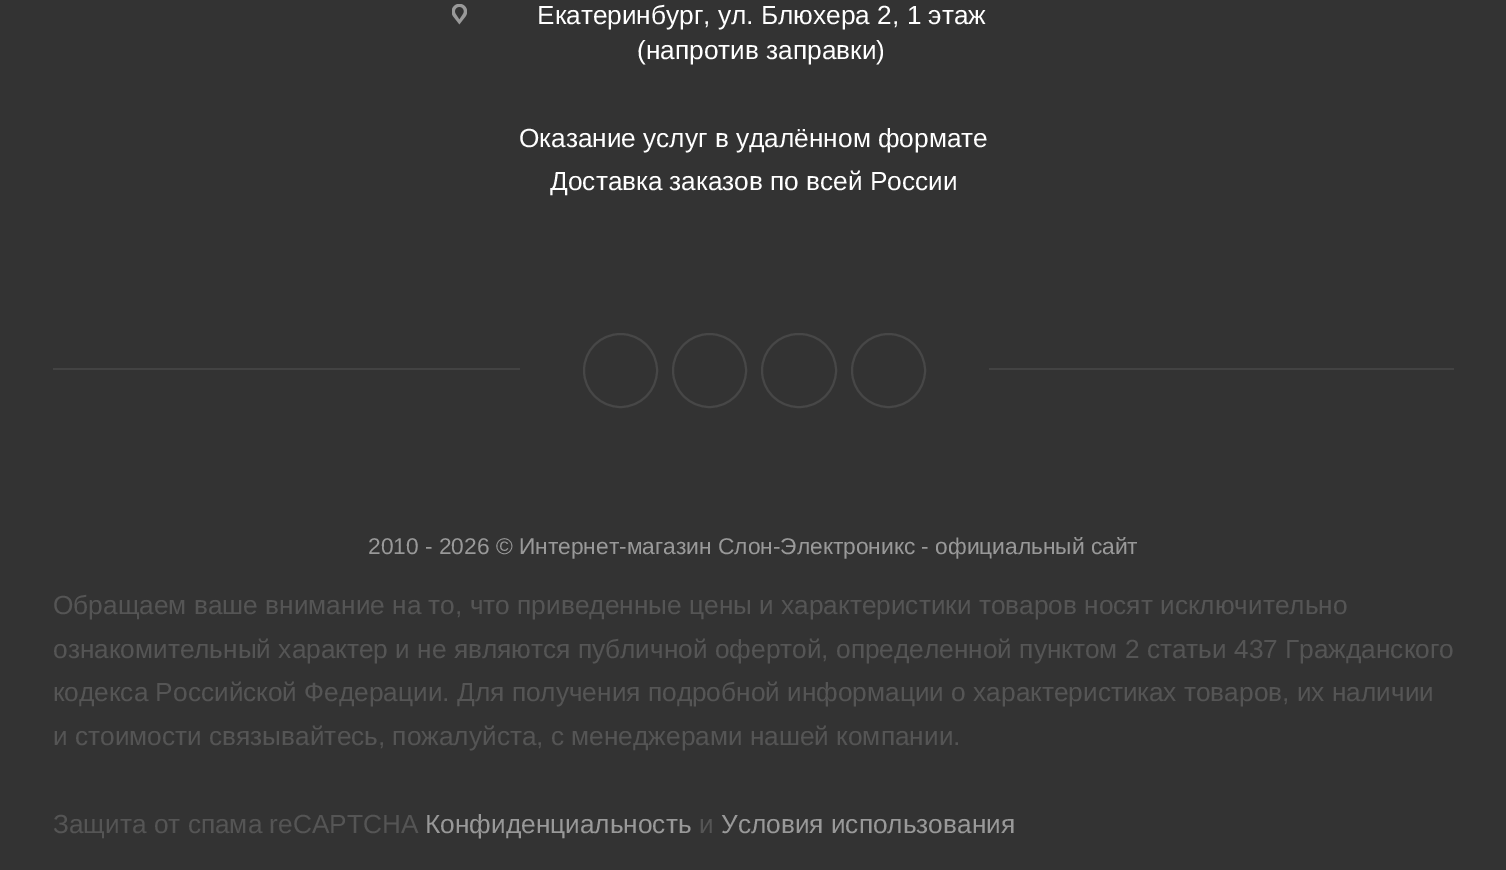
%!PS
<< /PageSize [1506 870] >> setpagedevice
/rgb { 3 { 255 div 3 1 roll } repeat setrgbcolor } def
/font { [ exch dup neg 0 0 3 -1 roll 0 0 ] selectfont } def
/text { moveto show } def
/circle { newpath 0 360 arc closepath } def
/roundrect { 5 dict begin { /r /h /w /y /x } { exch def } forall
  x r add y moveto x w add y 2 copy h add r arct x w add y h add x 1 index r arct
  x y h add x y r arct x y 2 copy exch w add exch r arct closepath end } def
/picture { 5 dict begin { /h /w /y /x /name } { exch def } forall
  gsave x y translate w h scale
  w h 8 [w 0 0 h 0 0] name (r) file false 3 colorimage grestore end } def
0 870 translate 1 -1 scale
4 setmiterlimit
51 51 51 rgb
0 0 1506 870 rectfill
(img_01.rgb) 452 4 15 21 picture
67 67 67 rgb
53 368 1401 2 rectfill
51 51 51 rgb
520 368 469 2 rectfill
71 71 71 rgb
2 setlinewidth
620.5 370.5 36.5 circle stroke
709.5 370.5 36.5 circle stroke
762 334 74 73 36.5 roundrect stroke
888.5 370.5 36.5 circle stroke
/LiberationSans-Regular 26.25 font
255 255 255 rgb
(Екатеринбург, ул. Блюхера 2, 1 этаж) 537 24 text
(\(напротив заправки\)) 637 59 text
(Оказание услуг в удалённом формате) 519 147 text
(Доставка заказов по всей России) 550 190 text
/LiberationSans-Regular 22.75 font
153 153 153 rgb
(2010 - 2026 © Интернет-магазин Слон-Электроникс - официальный сайт) 368 554 text
/LiberationSans-Regular 26.25 font
85 85 85 rgb
(Обращаем ваше внимание на то, что приведенные цены и характеристики товaров носят исключительно) 53 614 text
(ознакомительный характер и не являются публичной офертой, определенной пунктом 2 статьи 437 Гражданского) 53 658 text
(кодекса Российской Федерации. Для получения подробной информации о характеристиках товaров, их наличии) 53 701 text
(и стоимости связывайтесь, пожалуйста, с менеджерами нашей компании.) 53 745 text
(Защита от спама reCAPTCHA) 53 833 text
153 153 153 rgb
(Конфиденциальность) 425 833 text
85 85 85 rgb
(и) 699 833 text
153 153 153 rgb
(Условия использования) 721 833 text
showpage
